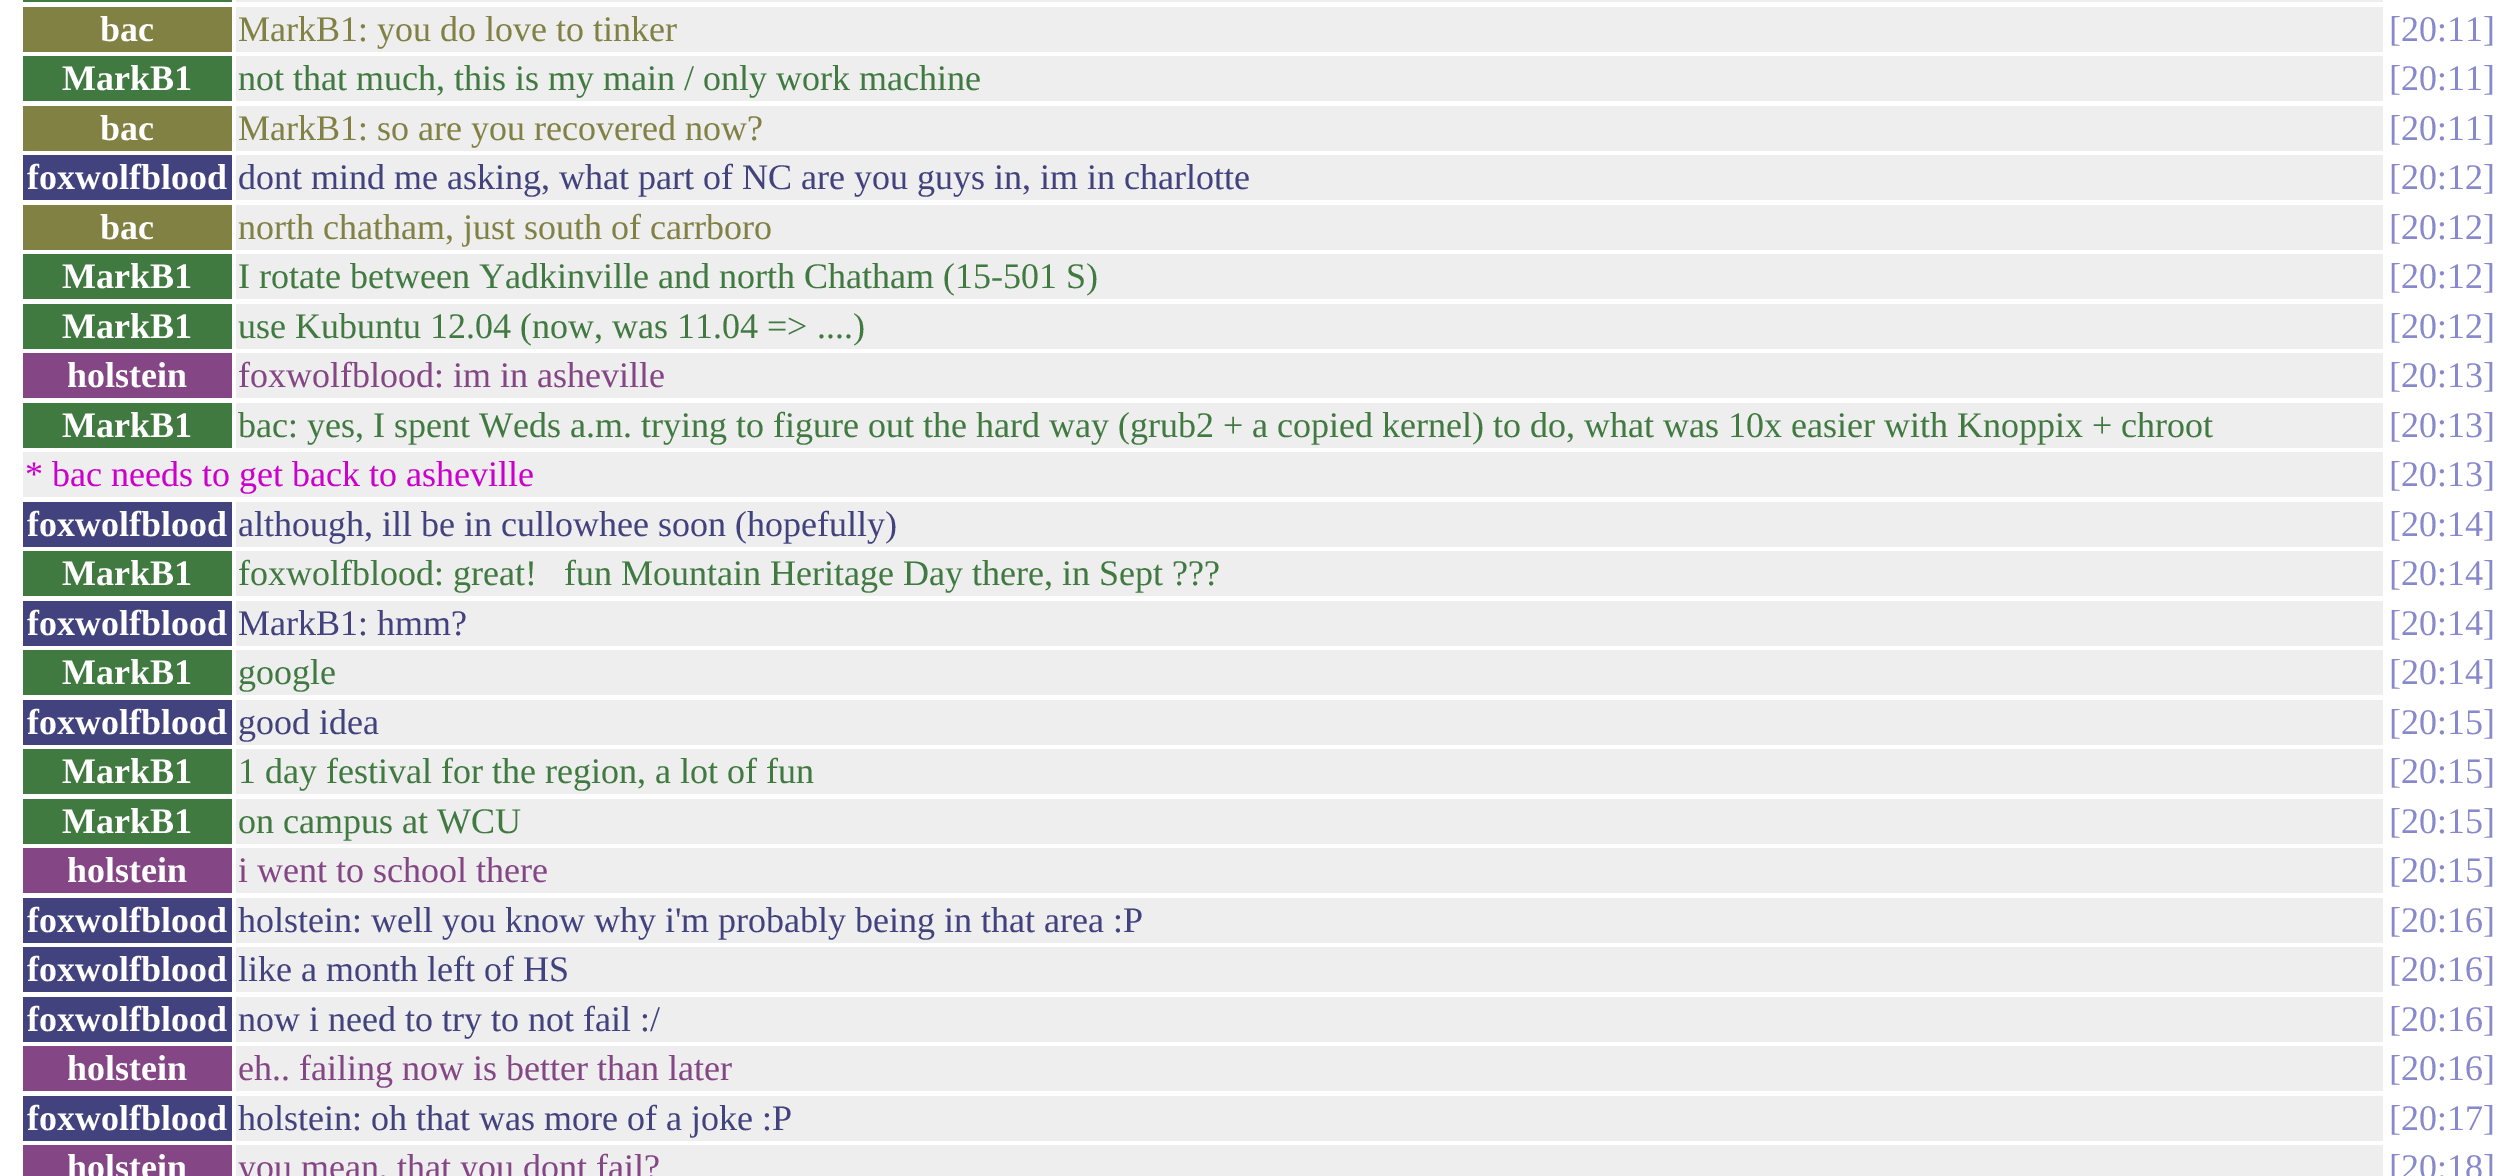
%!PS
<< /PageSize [2519 1176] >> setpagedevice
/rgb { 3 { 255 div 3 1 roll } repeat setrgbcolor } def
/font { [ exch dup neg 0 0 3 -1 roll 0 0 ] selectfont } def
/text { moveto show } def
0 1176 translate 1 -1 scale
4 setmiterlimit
255 255 255 rgb
0 0 2519 1176 rectfill
64 122 64 rgb
23 0 209 2 rectfill
238 238 238 rgb
236 0 2147 2 rectfill
129 129 68 rgb
23 7 209 45 rectfill
238 238 238 rgb
236 7 2147 45 rectfill
64 122 64 rgb
23 56 209 45 rectfill
238 238 238 rgb
236 56 2147 45 rectfill
129 129 68 rgb
23 106 209 45 rectfill
238 238 238 rgb
236 106 2147 45 rectfill
66 66 126 rgb
23 155 209 45 rectfill
238 238 238 rgb
236 155 2147 45 rectfill
129 129 68 rgb
23 205 209 45 rectfill
238 238 238 rgb
236 205 2147 45 rectfill
64 122 64 rgb
23 254 209 45 rectfill
238 238 238 rgb
236 254 2147 45 rectfill
64 122 64 rgb
23 304 209 45 rectfill
238 238 238 rgb
236 304 2147 45 rectfill
133 70 133 rgb
23 353 209 45 rectfill
238 238 238 rgb
236 353 2147 45 rectfill
64 122 64 rgb
23 403 209 45 rectfill
238 238 238 rgb
236 403 2147 45 rectfill
23 452 2360 45 rectfill
66 66 126 rgb
23 502 209 45 rectfill
238 238 238 rgb
236 502 2147 45 rectfill
64 122 64 rgb
23 551 209 45 rectfill
238 238 238 rgb
236 551 2147 45 rectfill
66 66 126 rgb
23 601 209 45 rectfill
238 238 238 rgb
236 601 2147 45 rectfill
64 122 64 rgb
23 650 209 45 rectfill
238 238 238 rgb
236 650 2147 45 rectfill
66 66 126 rgb
23 700 209 45 rectfill
238 238 238 rgb
236 700 2147 45 rectfill
64 122 64 rgb
23 749 209 45 rectfill
238 238 238 rgb
236 749 2147 45 rectfill
64 122 64 rgb
23 799 209 45 rectfill
238 238 238 rgb
236 799 2147 45 rectfill
133 70 133 rgb
23 848 209 45 rectfill
238 238 238 rgb
236 848 2147 45 rectfill
66 66 126 rgb
23 898 209 45 rectfill
238 238 238 rgb
236 898 2147 45 rectfill
66 66 126 rgb
23 947 209 45 rectfill
238 238 238 rgb
236 947 2147 45 rectfill
66 66 126 rgb
23 997 209 45 rectfill
238 238 238 rgb
236 997 2147 45 rectfill
133 70 133 rgb
23 1046 209 45 rectfill
238 238 238 rgb
236 1046 2147 45 rectfill
66 66 126 rgb
23 1096 209 45 rectfill
238 238 238 rgb
236 1096 2147 45 rectfill
133 70 133 rgb
23 1145 209 31 rectfill
238 238 238 rgb
236 1145 2147 31 rectfill
/LiberationSerif-Bold 36 font
255 255 255 rgb
(bac) 100 41 text
/LiberationSerif-Regular 36 font
129 129 68 rgb
(MarkB1: you do love to tinker) 238 41 text
136 136 204 rgb
([20:11]) 2389 41 text
/LiberationSerif-Bold 36 font
255 255 255 rgb
(MarkB1) 62 90 text
/LiberationSerif-Regular 36 font
64 122 64 rgb
(not that much, this is my main / only work machine) 238 90 text
136 136 204 rgb
([20:11]) 2389 90 text
/LiberationSerif-Bold 36 font
255 255 255 rgb
(bac) 100 140 text
/LiberationSerif-Regular 36 font
129 129 68 rgb
(MarkB1: so are you recovered now?) 238 140 text
136 136 204 rgb
([20:11]) 2389 140 text
/LiberationSerif-Bold 36 font
255 255 255 rgb
(foxwolfblood) 27 189 text
/LiberationSerif-Regular 36 font
66 66 126 rgb
(dont mind me asking, what part of NC are you guys in, im in charlotte) 238 189 text
136 136 204 rgb
([20:12]) 2389 189 text
/LiberationSerif-Bold 36 font
255 255 255 rgb
(bac) 100 239 text
/LiberationSerif-Regular 36 font
129 129 68 rgb
(north chatham, just south of carrboro) 238 239 text
136 136 204 rgb
([20:12]) 2389 239 text
/LiberationSerif-Bold 36 font
255 255 255 rgb
(MarkB1) 62 288 text
/LiberationSerif-Regular 36 font
64 122 64 rgb
(I rotate between Yadkinville and north Chatham \(15-501 S\)) 238 288 text
136 136 204 rgb
([20:12]) 2389 288 text
/LiberationSerif-Bold 36 font
255 255 255 rgb
(MarkB1) 62 338 text
/LiberationSerif-Regular 36 font
64 122 64 rgb
(use Kubuntu 12.04 \(now, was 11.04 => ....\)) 238 338 text
136 136 204 rgb
([20:12]) 2389 338 text
/LiberationSerif-Bold 36 font
255 255 255 rgb
(holstein) 67 387 text
/LiberationSerif-Regular 36 font
133 70 133 rgb
(foxwolfblood: im in asheville) 238 387 text
136 136 204 rgb
([20:13]) 2389 387 text
/LiberationSerif-Bold 36 font
255 255 255 rgb
(MarkB1) 62 437 text
/LiberationSerif-Regular 36 font
64 122 64 rgb
(bac: yes, I spent Weds a.m. trying to figure out the hard way \(grub2 + a copied kernel\) to do, what was 10x easier with Knoppix + chroot) 238 437 text
136 136 204 rgb
([20:13]) 2389 437 text
204 0 204 rgb
(* bac needs to get back to asheville) 25 486 text
136 136 204 rgb
([20:13]) 2389 486 text
/LiberationSerif-Bold 36 font
255 255 255 rgb
(foxwolfblood) 27 536 text
/LiberationSerif-Regular 36 font
66 66 126 rgb
(although, ill be in cullowhee soon \(hopefully\)) 238 536 text
136 136 204 rgb
([20:14]) 2389 536 text
/LiberationSerif-Bold 36 font
255 255 255 rgb
(MarkB1) 62 585 text
/LiberationSerif-Regular 36 font
64 122 64 rgb
(foxwolfblood: great!   fun Mountain Heritage Day there, in Sept ???) 238 585 text
136 136 204 rgb
([20:14]) 2389 585 text
/LiberationSerif-Bold 36 font
255 255 255 rgb
(foxwolfblood) 27 635 text
/LiberationSerif-Regular 36 font
66 66 126 rgb
(MarkB1: hmm?) 238 635 text
136 136 204 rgb
([20:14]) 2389 635 text
/LiberationSerif-Bold 36 font
255 255 255 rgb
(MarkB1) 62 684 text
/LiberationSerif-Regular 36 font
64 122 64 rgb
(google) 238 684 text
136 136 204 rgb
([20:14]) 2389 684 text
/LiberationSerif-Bold 36 font
255 255 255 rgb
(foxwolfblood) 27 734 text
/LiberationSerif-Regular 36 font
66 66 126 rgb
(good idea) 238 734 text
136 136 204 rgb
([20:15]) 2389 734 text
/LiberationSerif-Bold 36 font
255 255 255 rgb
(MarkB1) 62 783 text
/LiberationSerif-Regular 36 font
64 122 64 rgb
(1 day festival for the region, a lot of fun) 238 783 text
136 136 204 rgb
([20:15]) 2389 783 text
/LiberationSerif-Bold 36 font
255 255 255 rgb
(MarkB1) 62 833 text
/LiberationSerif-Regular 36 font
64 122 64 rgb
(on campus at WCU) 238 833 text
136 136 204 rgb
([20:15]) 2389 833 text
/LiberationSerif-Bold 36 font
255 255 255 rgb
(holstein) 67 882 text
/LiberationSerif-Regular 36 font
133 70 133 rgb
(i went to school there) 238 882 text
136 136 204 rgb
([20:15]) 2389 882 text
/LiberationSerif-Bold 36 font
255 255 255 rgb
(foxwolfblood) 27 932 text
/LiberationSerif-Regular 36 font
66 66 126 rgb
(holstein: well you know why i'm probably being in that area :P) 238 932 text
136 136 204 rgb
([20:16]) 2389 932 text
/LiberationSerif-Bold 36 font
255 255 255 rgb
(foxwolfblood) 27 981 text
/LiberationSerif-Regular 36 font
66 66 126 rgb
(like a month left of HS) 238 981 text
136 136 204 rgb
([20:16]) 2389 981 text
/LiberationSerif-Bold 36 font
255 255 255 rgb
(foxwolfblood) 27 1031 text
/LiberationSerif-Regular 36 font
66 66 126 rgb
(now i need to try to not fail :/) 238 1031 text
136 136 204 rgb
([20:16]) 2389 1031 text
/LiberationSerif-Bold 36 font
255 255 255 rgb
(holstein) 67 1080 text
/LiberationSerif-Regular 36 font
133 70 133 rgb
(eh.. failing now is better than later) 238 1080 text
136 136 204 rgb
([20:16]) 2389 1080 text
/LiberationSerif-Bold 36 font
255 255 255 rgb
(foxwolfblood) 27 1130 text
/LiberationSerif-Regular 36 font
66 66 126 rgb
(holstein: oh that was more of a joke :P) 238 1130 text
136 136 204 rgb
([20:17]) 2389 1130 text
/LiberationSerif-Bold 36 font
255 255 255 rgb
(holstein) 67 1179 text
/LiberationSerif-Regular 36 font
133 70 133 rgb
(you mean, that you dont fail?) 238 1179 text
136 136 204 rgb
([20:18]) 2389 1179 text
showpage
